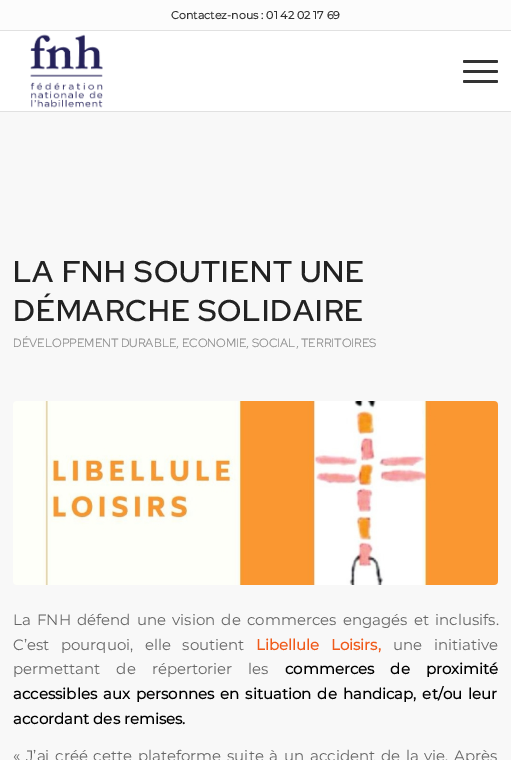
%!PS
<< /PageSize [511 760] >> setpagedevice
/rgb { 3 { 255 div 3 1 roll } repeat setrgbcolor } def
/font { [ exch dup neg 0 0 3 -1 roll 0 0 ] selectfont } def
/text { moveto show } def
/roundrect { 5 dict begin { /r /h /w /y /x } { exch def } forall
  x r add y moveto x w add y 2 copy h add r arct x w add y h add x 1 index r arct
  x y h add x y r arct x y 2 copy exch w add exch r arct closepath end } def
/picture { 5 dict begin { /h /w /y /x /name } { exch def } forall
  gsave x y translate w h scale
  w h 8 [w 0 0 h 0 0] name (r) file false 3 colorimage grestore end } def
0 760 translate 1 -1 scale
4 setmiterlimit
248 248 248 rgb
0 0 511 760 rectfill
252 252 252 rgb
0 0 511 30 rectfill
225 225 225 rgb
0 30 511 1 rectfill
255 255 255 rgb
0 31 511 80 rectfill
225 225 225 rgb
0 111 511 1 rectfill
(img_01.rgb) 30 34 73 74 picture
51 51 51 rgb
463 70 35 3 1.5 roundrect fill
463 60 35 3 1.5 roundrect fill
463 80 35 3 1.5 roundrect fill
(img_02.rgb) 13 401 485 184 picture
/Montserrat-Bold 11 font
(Contactez-nous : 01 42 02 17 69) 171 19 text
/RedHatDisplay-SemiBold 30 font
34 34 34 rgb
13 282 moveto 1 0 (LA FNH SOUTIENT UNE) ashow
13 321 moveto 1 0 (DÉMARCHE SOLIDAIRE) ashow
/RedHatDisplay-Regular 12 font
141 141 141 rgb
(DÉVELOPPEMENT DURABLE, ECONOMIE, SOCIAL, TERRITOIRES) 13 347 text
/Montserrat-Thin 15 font
102 102 102 rgb
13 625 moveto 2.25 0 32 (La FNH défend une vision de commerces engagés et inclusifs.) widthshow
13 650 moveto 7.5 0 32 (C’est pourquoi, elle soutient) widthshow
/Montserrat-Bold 15 font
240 90 26 rgb
256 650 moveto 7.5 0 32 (Libellule Loisirs,) widthshow
/Montserrat-Thin 15 font
102 102 102 rgb
393 650 moveto 7.5 0 32 (une initiative) widthshow
13 674 moveto 12 0 32 (permettant de répertorier les) widthshow
/Montserrat-Bold 15 font
0 0 0 rgb
285 674 moveto 12 0 32 (commerces de proximité) widthshow
13 699 moveto 2 0 32 (accessibles aux personnes en situation de handicap, et/ou leur) widthshow
(accordant des remises.) 13 724 text
/Montserrat-Thin 15 font
102 102 102 rgb
13 761 moveto 1.75 0 32 (« J’ai créé cette plateforme suite à un accident de la vie. Après) widthshow
showpage
